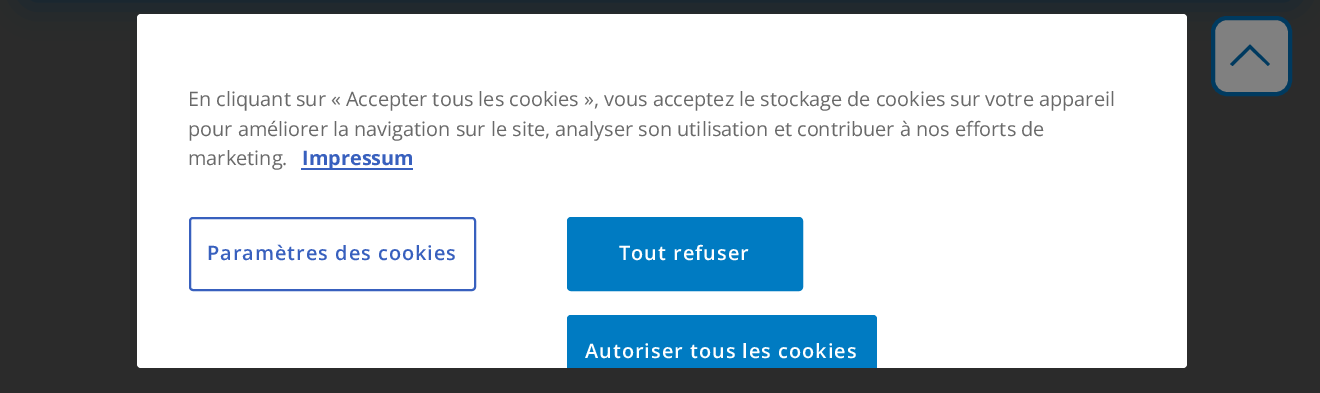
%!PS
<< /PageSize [1320 393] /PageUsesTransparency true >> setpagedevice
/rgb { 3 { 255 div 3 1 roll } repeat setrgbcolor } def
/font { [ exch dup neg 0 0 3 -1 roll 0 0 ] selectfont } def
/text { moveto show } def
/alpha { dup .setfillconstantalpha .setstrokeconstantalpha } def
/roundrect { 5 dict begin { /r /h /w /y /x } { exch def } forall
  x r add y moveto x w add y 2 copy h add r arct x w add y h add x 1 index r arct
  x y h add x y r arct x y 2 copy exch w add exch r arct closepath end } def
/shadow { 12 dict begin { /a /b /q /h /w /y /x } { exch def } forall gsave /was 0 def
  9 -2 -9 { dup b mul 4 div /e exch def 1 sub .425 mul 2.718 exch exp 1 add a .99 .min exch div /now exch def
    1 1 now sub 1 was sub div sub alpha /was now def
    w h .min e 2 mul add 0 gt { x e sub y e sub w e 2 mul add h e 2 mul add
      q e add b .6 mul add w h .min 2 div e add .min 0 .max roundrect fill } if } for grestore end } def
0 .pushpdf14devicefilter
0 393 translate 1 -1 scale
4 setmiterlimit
43 43 43 rgb
0 0 1320 393 rectfill
0 34 56 rgb
28 -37 1265 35 0 19 0.81 shadow
128 128 128 rgb
1213 18 77 76 14 roundrect gsave fill grestore
0 58 95 rgb
4 setlinewidth
stroke
1268 66 moveto -18 -17 rlineto -17.5 17 rlineto -2.5 -2 rlineto 20 -19.5 rlineto 20 19.5 rlineto closepath fill
255 255 255 rgb
137 14 1050 354 4 roundrect fill
56 96 190 rgb
301 168 112 2 rectfill
2 setlinewidth
190 218 285 72 3 roundrect stroke
0 123 194 rgb
568 218 234 72 3 roundrect gsave fill grestore
stroke
571 315 moveto 302 0 rlineto 2 0 4 2 4 4 rcurveto 0 49 rlineto -310 0 rlineto 0 -49 rlineto 0 -2 2 -4 4 -4 rcurveto closepath fill
571 315 moveto -2 0 -4 2 -4 4 rcurveto 0 49 rlineto 2 0 rlineto 0 -49 rlineto 0 -1 1 -2 2 -2 rcurveto 302 0 rlineto 1 0 2 1 2 2 rcurveto 0 49 rlineto 2 0 rlineto 0 -49 rlineto 0 -2 -2 -4 -4 -4 rcurveto closepath fill
/OpenSans-Regular 19.9 font
105 105 105 rgb
(En cliquant sur « Accepter tous les cookies », vous acceptez le stockage de cookies sur votre appareil) 188 106 text
(pour améliorer la navigation sur le site, analyser son utilisation et contribuer à nos efforts de) 188 136 text
(marketing.) 188 165 text
/OpenSans-Bold 19.9 font
56 96 190 rgb
(Impressum) 302 165 text
/OpenSans-SemiBold 19.9 font
207 260 moveto 1 0 (Paramètres des cookies) ashow
255 255 255 rgb
619 260 moveto 1 0 (Tout refuser) ashow
585 358 moveto 1 0 (Autoriser tous les cookies) ashow
.poppdf14devicefilter showpage
